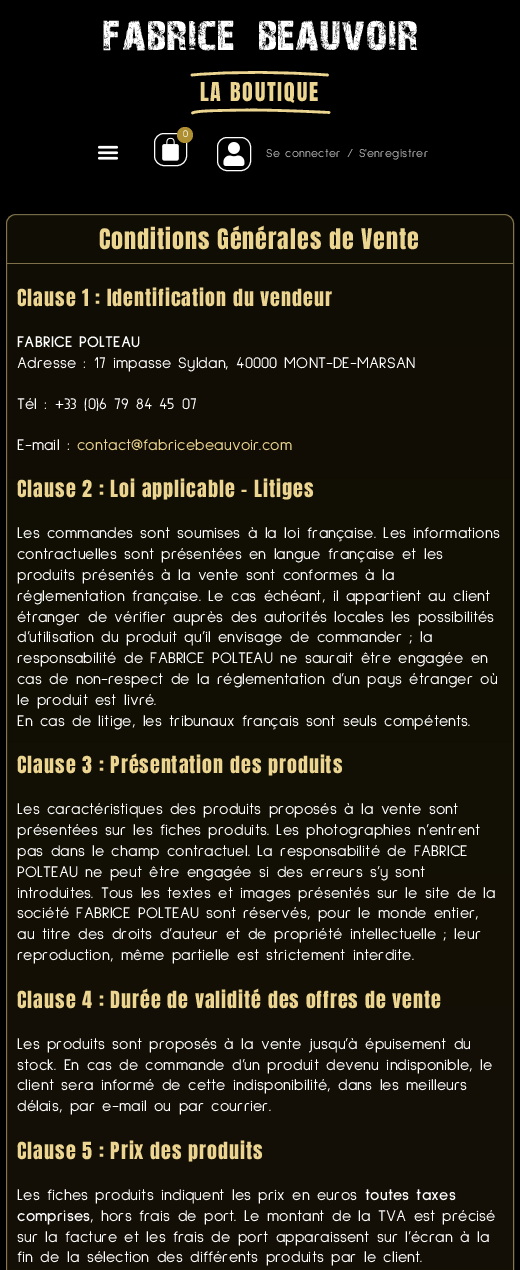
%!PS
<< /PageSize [520 1270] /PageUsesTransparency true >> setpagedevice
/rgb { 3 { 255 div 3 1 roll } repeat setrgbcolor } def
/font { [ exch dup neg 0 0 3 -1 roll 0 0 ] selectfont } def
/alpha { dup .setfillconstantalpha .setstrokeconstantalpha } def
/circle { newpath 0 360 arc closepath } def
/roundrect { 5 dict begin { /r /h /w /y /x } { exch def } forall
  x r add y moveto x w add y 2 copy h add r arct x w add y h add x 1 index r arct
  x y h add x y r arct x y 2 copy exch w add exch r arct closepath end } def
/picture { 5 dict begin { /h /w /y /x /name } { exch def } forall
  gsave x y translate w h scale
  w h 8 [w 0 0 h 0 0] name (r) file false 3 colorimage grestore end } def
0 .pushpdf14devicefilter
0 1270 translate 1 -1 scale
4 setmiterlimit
0 0 0 rgb
0 0 520 1270 rectfill
(img_01.rgb) 103 20 315 31 picture
236 213 144 rgb
2.6 setlinewidth
1 setlinecap
1 setlinejoin
192.5 113 moveto 4 -2.5 27 -2.5 56 -3 rcurveto 34.5 0 80.5 2.5 80.5 2.5 rcurveto stroke
192 75 moveto 45 -4 90.5 -3 135.5 0 rcurveto stroke
255 255 255 rgb
1 setlinewidth
0 setlinecap
0 setlinejoin
154.5 133.5 32 32 9.5 roundrect stroke
(img_02.rgb) 162 137 17 24 picture
174 143 49 rgb
185 135 8 circle fill
(img_03.rgb) 97 145 22 15 picture
255 255 255 rgb
217.5 137.5 33 33 9.5 roundrect stroke
(img_04.rgb) 223 142 22 24 picture
gsave
6 214 508 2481 10 roundrect clip newpath
gsave 6 215 moveto 508 0 rlineto 0 1055 rlineto -508 0 rlineto closepath clip newpath
<< /ShadingType 2 /ColorSpace /DeviceRGB /Coords [260 215 260 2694] /Extend [true true] /Function << /FunctionType 2 /Domain [0 1] /C0 [0.102 0.082 0.027] /C1 [0.165 0.133 0.047] /N 1 >> >> shfill grestore
grestore
0.5 alpha
236 213 144 rgb
6.5 214.5 507 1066 9.5 roundrect stroke
0.38 alpha
0 0 0 rgb
7 215 506 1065 10 roundrect fill
1 alpha
126 113 74 rgb
7 263 506 1 rectfill
/Anton-Regular 22 font
236 213 144 rgb
200 101 moveto 1.75 0 (LA BOUTIQUE) ashow
/SulphurPoint-Regular 10 font
255 255 255 rgb
183 137 moveto 0.1 0 (0) ashow
/SulphurPoint-Regular 12 font
179 179 179 rgb
266 157 moveto 0.2 0 (Se connecter / S'enregistrer) ashow
/Anton-Regular 24 font
236 213 144 rgb
99 249 moveto 1 0 (Conditions Générales de Vente) ashow
/Anton-Regular 20 font
17 306 moveto 1 0 (Clause 1 : Identification du vendeur) ashow
/SulphurPoint-Bold 16 font
255 255 255 rgb
17 347 moveto 0.1 0 (FABRICE POLTEAU) ashow
/SulphurPoint-Regular 16 font
17 368 moveto 0.1 0 (Adresse : 17 impasse Syldan, 40000 MONT-DE-MARSAN) ashow
17 409 moveto 0.1 0 (Tél : +33 \(0\)6 79 84 45 07) ashow
17 450 moveto 0.1 0 (E-mail :) ashow
236 213 144 rgb
77 450 moveto 0.1 0 (contact@fabricebeauvoir.com) ashow
/Anton-Regular 20 font
17 497 moveto 1 0 (Clause 2 : Loi applicable – Litiges) ashow
/SulphurPoint-Regular 16 font
255 255 255 rgb
17 538 moveto 0.1 0 (Les commandes sont soumises à la loi française. Les informations) ashow
17 559 moveto 0.1 0 (contractuelles sont présentées en langue française et les) ashow
17 580 moveto 0.1 0 (produits présentés à la vente sont conformes à la) ashow
17 601 moveto 0.1 0 (réglementation française. Le cas échéant, il appartient au client) ashow
17 622 moveto 0.1 0 (étranger de vérifier auprès des autorités locales les possibilités) ashow
17 642 moveto 0.1 0 (d’utilisation du produit qu’il envisage de commander ; la) ashow
17 663 moveto 0.1 0 (responsabilité de FABRICE POLTEAU ne saurait être engagée en) ashow
17 684 moveto 0.1 0 (cas de non-respect de la réglementation d’un pays étranger où) ashow
17 705 moveto 0.1 0 (le produit est livré.) ashow
17 726 moveto 0.1 0 (En cas de litige, les tribunaux français sont seuls compétents.) ashow
/Anton-Regular 20 font
236 213 144 rgb
17 773 moveto 1 0 (Clause 3 : Présentation des produits) ashow
/SulphurPoint-Regular 16 font
255 255 255 rgb
17 814 moveto 0.1 0 (Les caractéristiques des produits proposés à la vente sont) ashow
17 835 moveto 0.1 0 (présentées sur les fiches produits. Les photographies n’entrent) ashow
17 856 moveto 0.1 0 (pas dans le champ contractuel. La responsabilité de FABRICE) ashow
17 877 moveto 0.1 0 (POLTEAU ne peut être engagée si des erreurs s’y sont) ashow
17 898 moveto 0.1 0 (introduites. Tous les textes et images présentés sur le site de la) ashow
17 918 moveto 0.1 0 (société FABRICE POLTEAU sont réservés, pour le monde entier,) ashow
17 939 moveto 0.1 0 (au titre des droits d’auteur et de propriété intellectuelle ; leur) ashow
17 960 moveto 0.1 0 (reproduction, même partielle est strictement interdite.) ashow
/Anton-Regular 20 font
236 213 144 rgb
17 1008 moveto 1 0 (Clause 4 : Durée de validité des offres de vente) ashow
/SulphurPoint-Regular 16 font
255 255 255 rgb
17 1049 moveto 0.1 0 (Les produits sont proposés à la vente jusqu’à épuisement du) ashow
17 1070 moveto 0.1 0 (stock. En cas de commande d’un produit devenu indisponible, le) ashow
17 1090 moveto 0.1 0 (client sera informé de cette indisponibilité, dans les meilleurs) ashow
17 1111 moveto 0.1 0 (délais, par e-mail ou par courrier.) ashow
/Anton-Regular 20 font
236 213 144 rgb
17 1159 moveto 1 0 (Clause 5 : Prix des produits) ashow
/SulphurPoint-Regular 16 font
255 255 255 rgb
17 1200 moveto 0.1 0 (Les fiches produits indiquent les prix en euros) ashow
/SulphurPoint-Bold 16 font
365 1200 moveto 0.1 0 (toutes taxes) ashow
17 1221 moveto 0.1 0 (comprises) ashow
/SulphurPoint-Regular 16 font
90 1221 moveto 0.1 0 (, hors frais de port. Le montant de la TVA est précisé) ashow
17 1242 moveto 0.1 0 (sur la facture et les frais de port apparaissent sur l’écran à la) ashow
17 1262 moveto 0.1 0 (fin de la sélection des différents produits par le client.) ashow
.poppdf14devicefilter showpage
